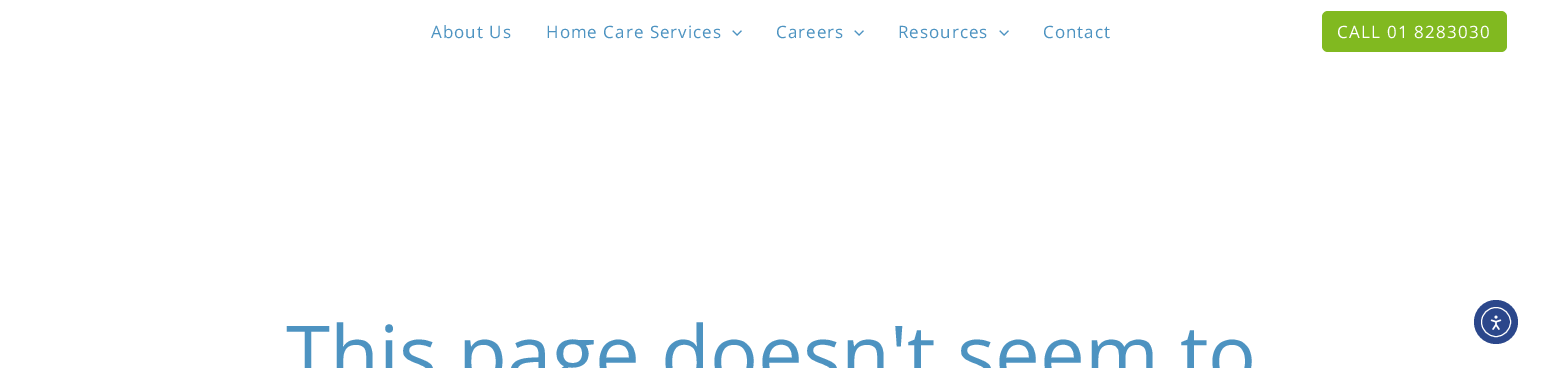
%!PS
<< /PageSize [1542 368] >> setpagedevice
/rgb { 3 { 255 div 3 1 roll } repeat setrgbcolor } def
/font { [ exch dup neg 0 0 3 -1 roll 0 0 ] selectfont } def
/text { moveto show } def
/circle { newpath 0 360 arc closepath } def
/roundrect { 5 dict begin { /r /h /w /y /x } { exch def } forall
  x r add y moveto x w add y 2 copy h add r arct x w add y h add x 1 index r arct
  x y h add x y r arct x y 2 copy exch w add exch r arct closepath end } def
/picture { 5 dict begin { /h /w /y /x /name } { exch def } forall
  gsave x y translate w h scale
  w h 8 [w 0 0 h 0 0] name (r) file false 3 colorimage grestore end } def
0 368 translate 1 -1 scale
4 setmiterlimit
255 255 255 rgb
0 0 1542 368 rectfill
(img_01.rgb) 732 30 10 6 picture
(img_01.rgb) 854 30 10 6 picture
(img_01.rgb) 999 30 10 6 picture
129 185 32 rgb
1322 11 185 41 6 roundrect fill
43 71 139 rgb
1496 322 22 circle fill
255 255 255 rgb
1496 322 14.5 circle stroke
(img_02.rgb) 1490 315 12 15 picture
/OpenSans-Regular 17 font
77 147 193 rgb
431 38 moveto 1 0 (About Us) ashow
546 38 moveto 1 0 (Home Care Services) ashow
776 38 moveto 1 0 (Careers) ashow
898 38 moveto 1 0 (Resources) ashow
1043 38 moveto 1 0 (Contact) ashow
255 255 255 rgb
1337 38 moveto 1.25 0 (CALL 01 8283030) ashow
/OpenSans-Regular 80 font
77 147 193 rgb
(This page doesn't seem to) 286 383 text
showpage
